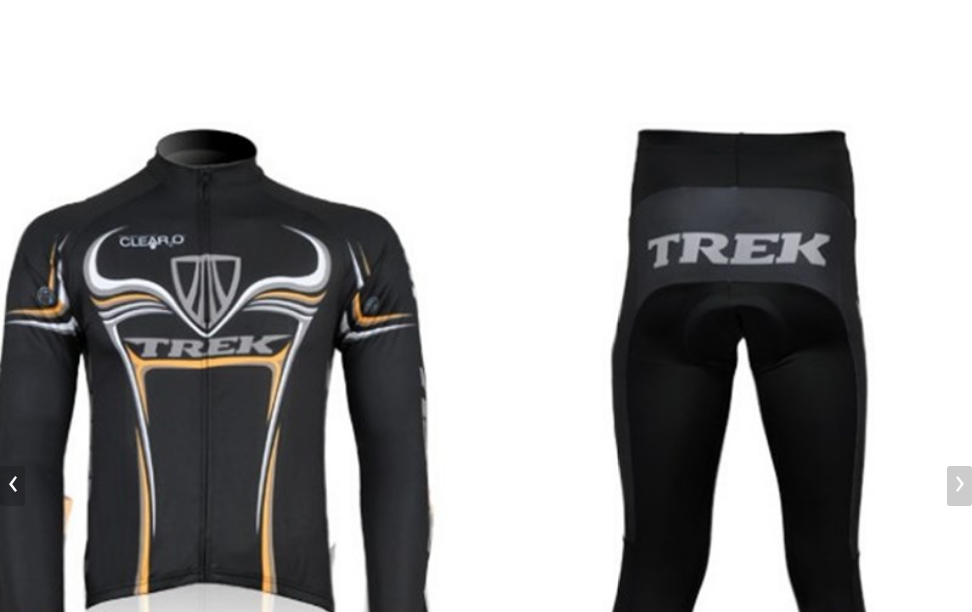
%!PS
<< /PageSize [972 612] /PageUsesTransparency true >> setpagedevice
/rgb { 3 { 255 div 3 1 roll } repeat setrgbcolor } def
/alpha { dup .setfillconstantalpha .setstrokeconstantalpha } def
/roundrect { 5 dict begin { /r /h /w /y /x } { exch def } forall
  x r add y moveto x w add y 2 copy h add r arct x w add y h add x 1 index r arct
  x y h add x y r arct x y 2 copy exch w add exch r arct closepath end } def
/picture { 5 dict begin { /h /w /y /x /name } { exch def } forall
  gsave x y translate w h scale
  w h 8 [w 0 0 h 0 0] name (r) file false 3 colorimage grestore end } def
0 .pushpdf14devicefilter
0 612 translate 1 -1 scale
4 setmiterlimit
255 255 255 rgb
0 0 972 612 rectfill
(img_01.rgb) 0 122 875 490 picture
0.2 alpha
0 0 0 rgb
0 466 25 40 3 roundrect fill
1 alpha
(img_02.rgb) 9 476 8 16 picture
204 204 204 rgb
947 466 25 40 3 roundrect fill
(img_03.rgb) 956 476 8 16 picture
.poppdf14devicefilter showpage
